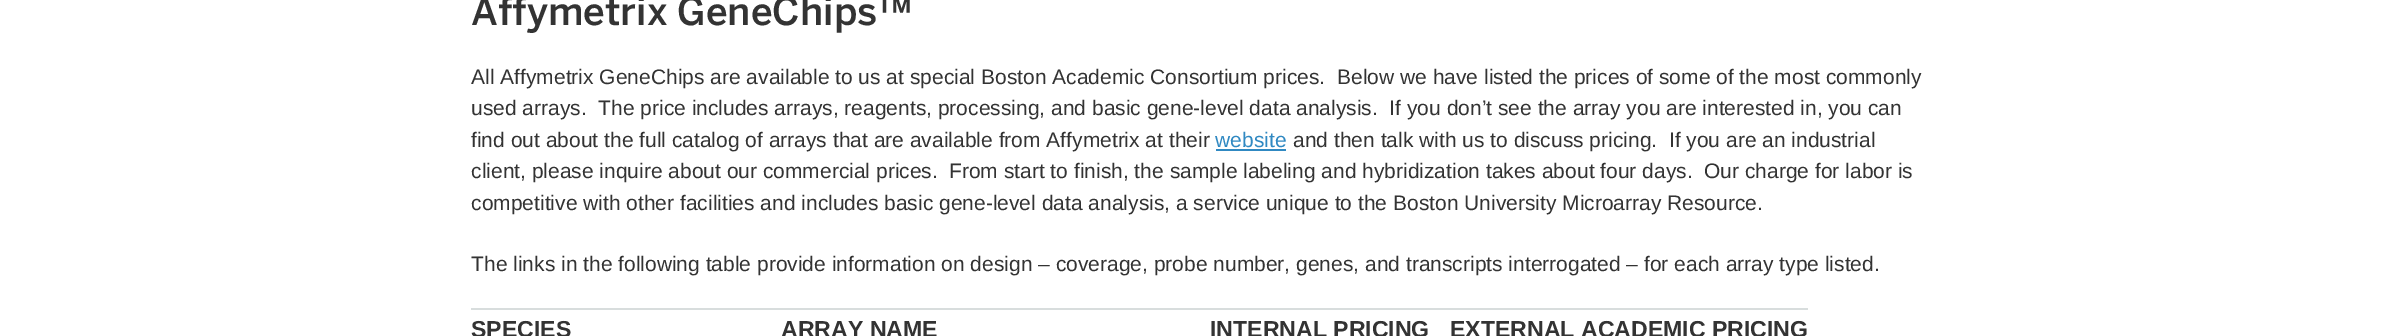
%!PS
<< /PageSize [2406 336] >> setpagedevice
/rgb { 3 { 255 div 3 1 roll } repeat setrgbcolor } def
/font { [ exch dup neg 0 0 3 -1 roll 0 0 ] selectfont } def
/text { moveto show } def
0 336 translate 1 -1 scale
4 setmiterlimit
255 255 255 rgb
0 0 2406 336 rectfill
48 137 194 rgb
1216 149 70 2 rectfill
216 221 221 rgb
471 308 1337 2 rectfill
/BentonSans-Medium 38.5 font
51 51 51 rgb
(Affymetrix GeneChips™) 471 25 text
/LiberationSans-Regular 21 font
(All Affymetrix GeneChips are available to us at special Boston Academic Consortium prices.  Below we have listed the prices of some of the most commonly) 471 84 text
(used arrays.  The price includes arrays, reagents, processing, and basic gene-level data analysis.  If you don’t see the array you are interested in, you can) 471 115 text
(find out about the full catalog of arrays that are available from Affymetrix at their) 471 147 text
48 137 194 rgb
(website) 1215 147 text
51 51 51 rgb
(and then talk with us to discuss pricing.  If you are an industrial) 1293 147 text
(client, please inquire about our commercial prices.) 471 178 text
(From start to finish, the sample labeling and hybridization takes about four days.  Our charge for labor is) 949 178 text
(competitive with other facilities and includes basic gene-level data analysis, a service unique to the Boston University Microarray Resource.) 471 210 text
(The links in the following table provide information on design – coverage, probe number, genes, and transcripts interrogated – for each array type listed.) 471 271 text
/LiberationSans-Bold 23.1 font
(SPECIES) 471 337 text
(ARRAY NAME) 781 337 text
(INTERNAL PRICING) 1210 337 text
(EXTERNAL ACADEMIC PRICING) 1450 337 text
showpage
